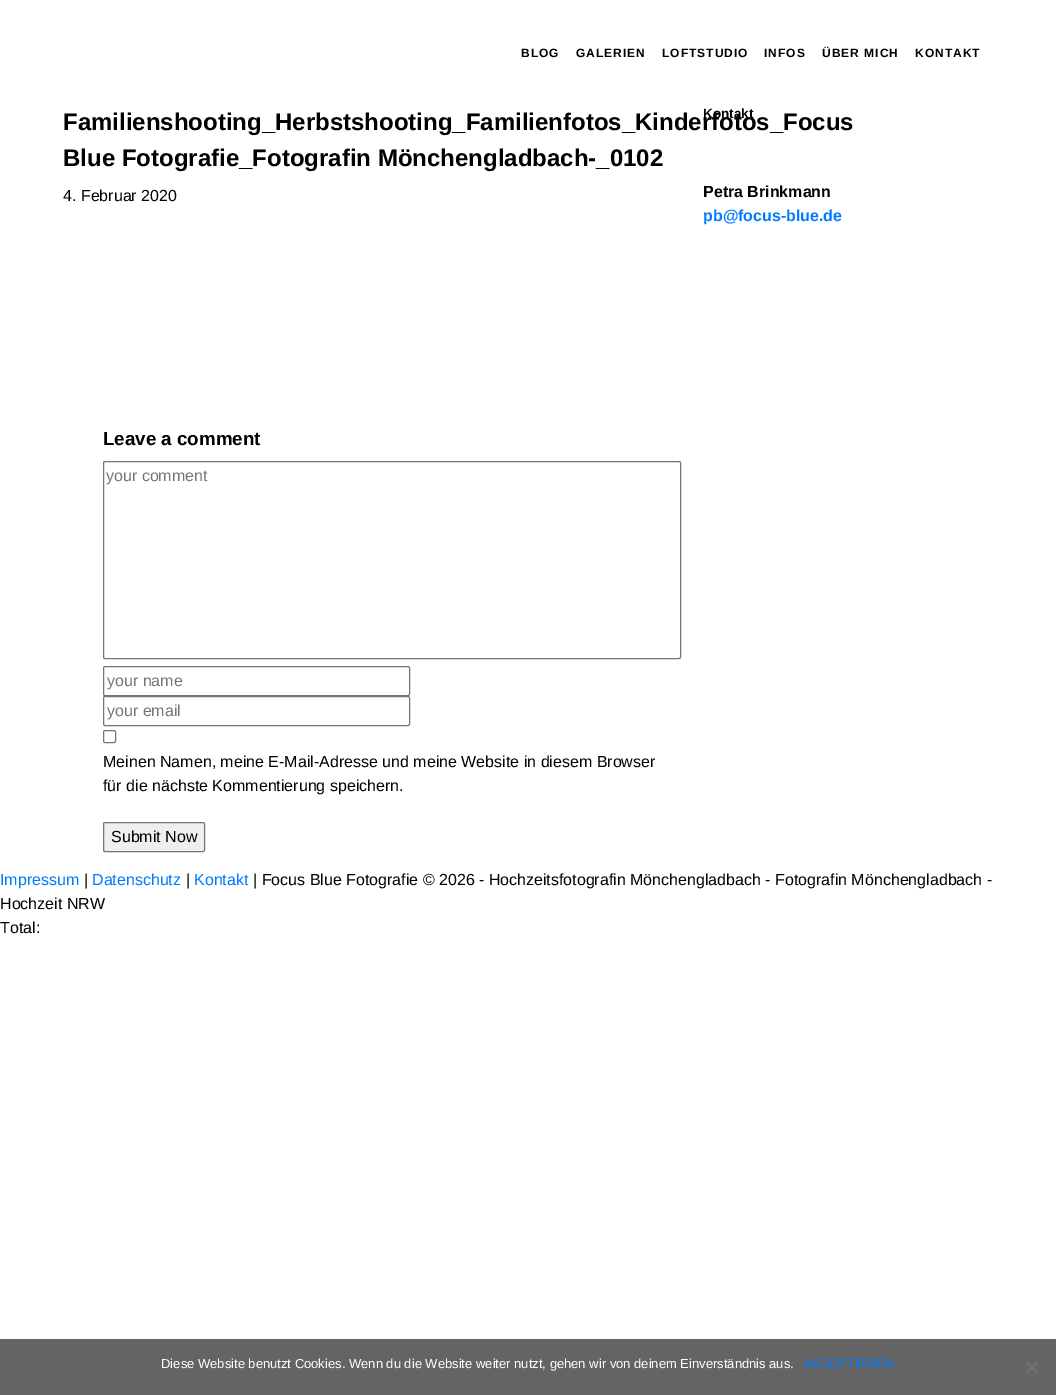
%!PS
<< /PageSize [1056 1395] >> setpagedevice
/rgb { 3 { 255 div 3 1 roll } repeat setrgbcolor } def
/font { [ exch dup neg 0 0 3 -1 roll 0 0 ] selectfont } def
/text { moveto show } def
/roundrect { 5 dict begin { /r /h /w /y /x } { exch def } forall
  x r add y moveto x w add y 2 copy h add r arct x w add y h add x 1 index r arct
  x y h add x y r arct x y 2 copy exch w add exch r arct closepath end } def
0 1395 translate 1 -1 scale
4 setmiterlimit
255 255 255 rgb
0 0 1056 1395 rectfill
118 118 118 rgb
103.5 461.5 577 197 1.5 roundrect stroke
103.5 666.5 306 29 1.5 roundrect stroke
103.5 696.5 306 29 1.5 roundrect stroke
103.5 730.5 12 12 1.5 roundrect stroke
239 239 239 rgb
103.5 822.5 101 29 1.5 roundrect gsave fill grestore
118 118 118 rgb
stroke
100 100 100 rgb
0 1339 1056 56 rectfill
114 114 114 rgb
1036.5 1361.5 moveto 1.5 1.5 rlineto -10.5 10.5 rlineto -1.5 -1.5 rlineto closepath fill
1026 1363 moveto 1.5 -1.5 rlineto 10.5 10.5 rlineto -1.5 1.5 rlineto closepath fill
/LiberationSans-Bold 12 font
0 0 0 rgb
521 57 moveto 1 0 (BLOG) ashow
576 57 moveto 1 0 (GALERIEN) ashow
662 57 moveto 1 0 (LOFTSTUDIO) ashow
764 57 moveto 1 0 (INFOS) ashow
822 57 moveto 1 0 (ÜBER MICH) ashow
915 57 moveto 1 0 (KONTAKT) ashow
/LiberationSans-Bold 16 font
(Petra Brinkmann) 703 197 text
0 123 255 rgb
(pb@focus-blue.de) 703 221 text
/LiberationSans-Bold 24 font
0 0 0 rgb
(Familienshooting_Herbstshooting_Familienfotos_Kinderfotos_Focus) 63 130 text
/LiberationSans-Bold 13.5 font
(Kontakt) 703 118 text
/LiberationSans-Bold 24 font
(Blue Fotografie_Fotografin Mönchengladbach-_0102) 63 166 text
/LiberationSans-Regular 16 font
(4. Februar 2020) 63 201 text
/LiberationSans-Bold 18.75 font
(Leave a comment) 103 445 text
/LiberationSans-Regular 16 font
117 117 117 rgb
(your comment) 106 481 text
(your name) 107 686 text
(your email) 107 716 text
0 0 0 rgb
(Meinen Namen, meine E-Mail-Adresse und meine Website in diesem Browser) 103 767 text
(für die nächste Kommentierung speichern.) 103 791 text
(Submit Now) 111 842 text
0 123 255 rgb
(Impressum) 0 885 text
0 0 0 rgb
(|) 84 885 text
0 123 255 rgb
(Datenschutz) 92 885 text
0 0 0 rgb
(|) 186 885 text
0 123 255 rgb
(Kontakt) 194 885 text
0 0 0 rgb
(| Focus Blue Fotografie © 2026 - Hochzeitsfotografin Mönchengladbach - Fotografin Mönchengladbach -) 253 885 text
(Hochzeit NRW) 0 909 text
(Total:) 0 933 text
/LiberationSans-Regular 13 font
255 255 255 rgb
(Diese Website benutzt Cookies. Wenn du die Website weiter nutzt, gehen wir von deinem Einverständnis aus.) 161 1368 text
0 123 255 rgb
(AKZEPTIEREN) 804 1368 text
showpage
